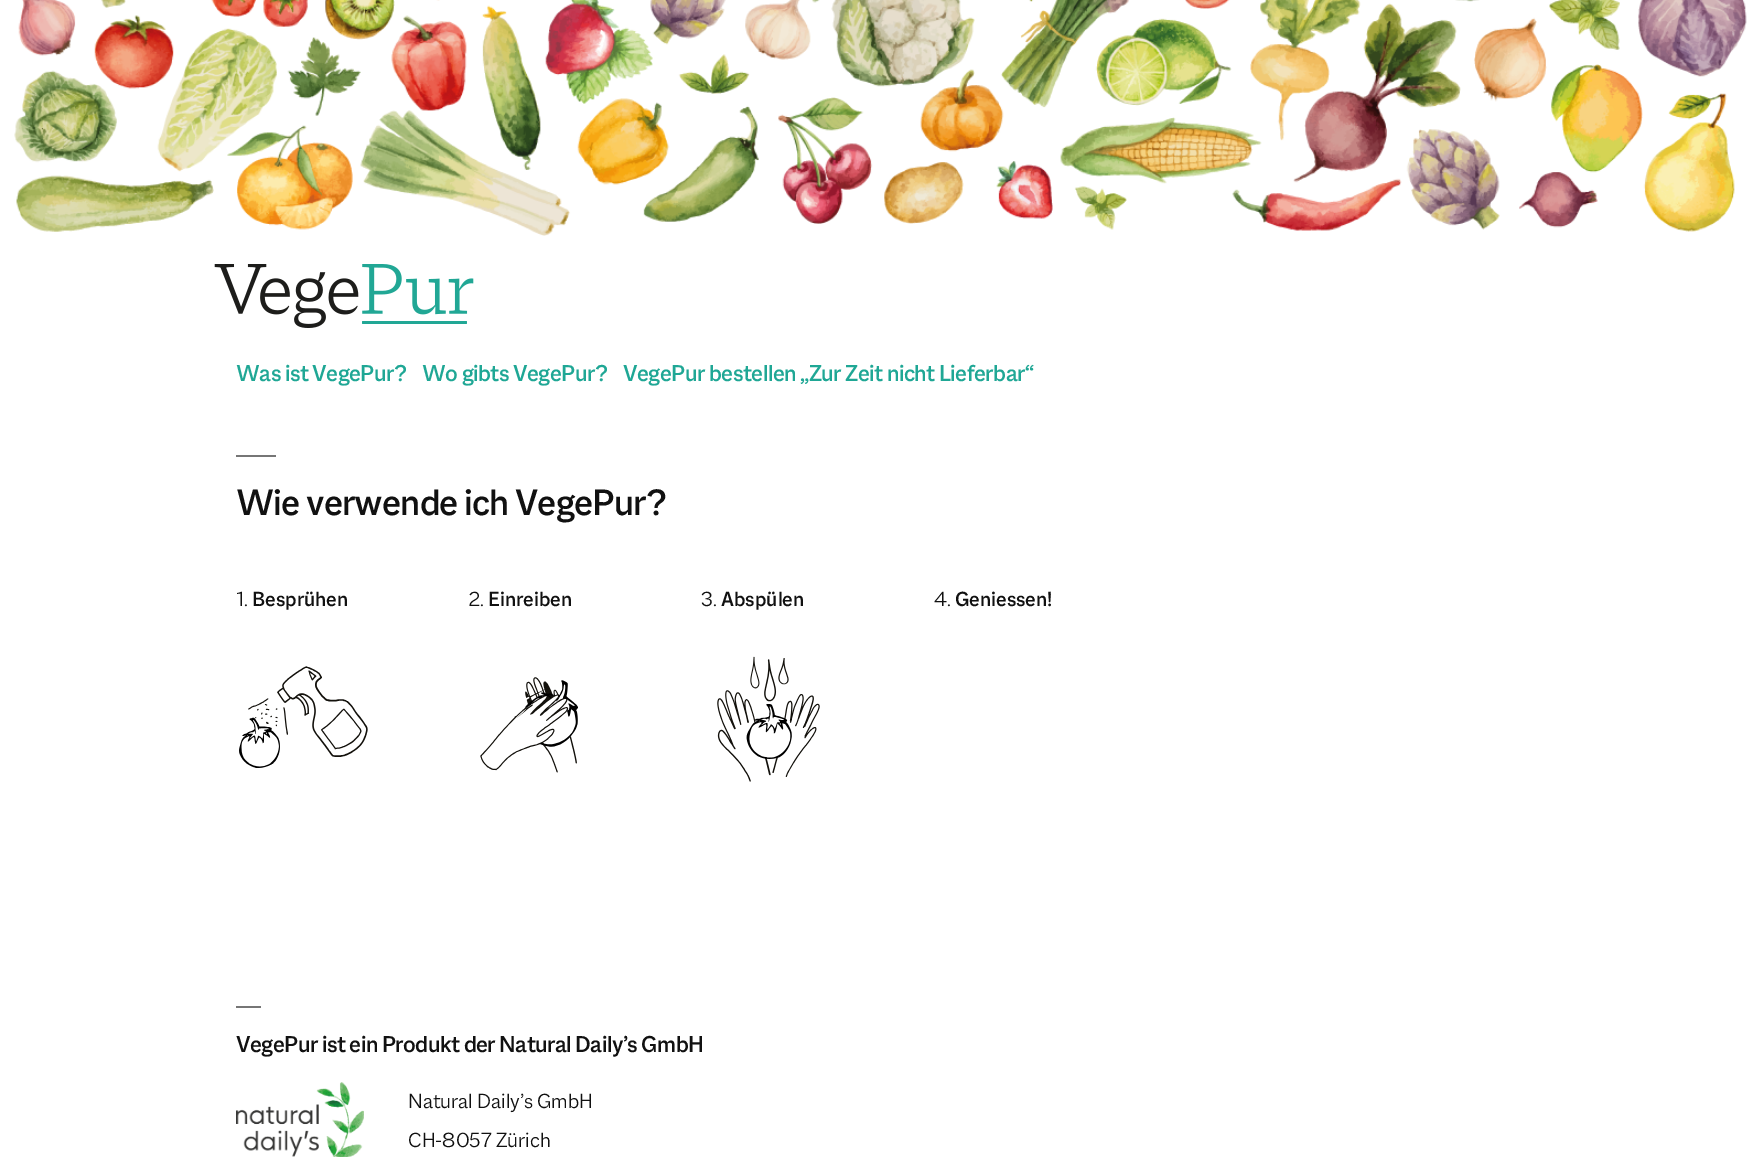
%!PS
<< /PageSize [1764 1157] >> setpagedevice
/rgb { 3 { 255 div 3 1 roll } repeat setrgbcolor } def
/font { [ exch dup neg 0 0 3 -1 roll 0 0 ] selectfont } def
/text { moveto show } def
/picture { 5 dict begin { /h /w /y /x /name } { exch def } forall
  gsave x y translate w h scale
  w h 8 [w 0 0 h 0 0] name (r) file false 3 colorimage grestore end } def
0 1157 translate 1 -1 scale
4 setmiterlimit
255 255 255 rgb
0 0 1764 1157 rectfill
(img_01.rgb) 14 0 1733 236 picture
(img_02.rgb) 214 264 260 64 picture
118 118 118 rgb
236 455 40 2 rectfill
(img_03.rgb) 239 666 129 102 picture
(img_04.rgb) 480 677 98 96 picture
(img_05.rgb) 717 656 103 126 picture
236 1006 25 2 rectfill
(img_06.rgb) 236 1082 128 75 picture
/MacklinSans-Medium 24.75 font
31 167 149 rgb
236 381 moveto -0.5 0 (Was ist VegePur?) ashow
422 381 moveto -0.5 0 (Wo gibts VegePur?) ashow
623 381 moveto -0.5 0 (VegePur bestellen „Zur Zeit nicht Lieferbar“) ashow
/MacklinSans-Medium 39.6 font
17 17 17 rgb
236 515 moveto -0.8 0 (Wie verwende ich VegePur?) ashow
/MacklinSans-Light 22 font
(1.) 236 606 text
/MacklinSans-Medium 22 font
(Besprühen) 252 606 text
/MacklinSans-Light 22 font
(2.) 469 606 text
/MacklinSans-Medium 22 font
(Einreiben) 488 606 text
/MacklinSans-Light 22 font
(3.) 701 606 text
/MacklinSans-Medium 22 font
(Abspülen) 721 606 text
/MacklinSans-Light 22 font
(4.) 934 606 text
/MacklinSans-Medium 22 font
(Geniessen!) 955 606 text
/MacklinSans-Medium 24.75 font
236 1052 moveto -0.5 0 (VegePur ist ein Produkt der Natural Daily’s GmbH) ashow
/MacklinSans-Light 22 font
(Natural Daily’s GmbH) 408 1108 text
(CH-8057 Zürich) 408 1147 text
showpage
